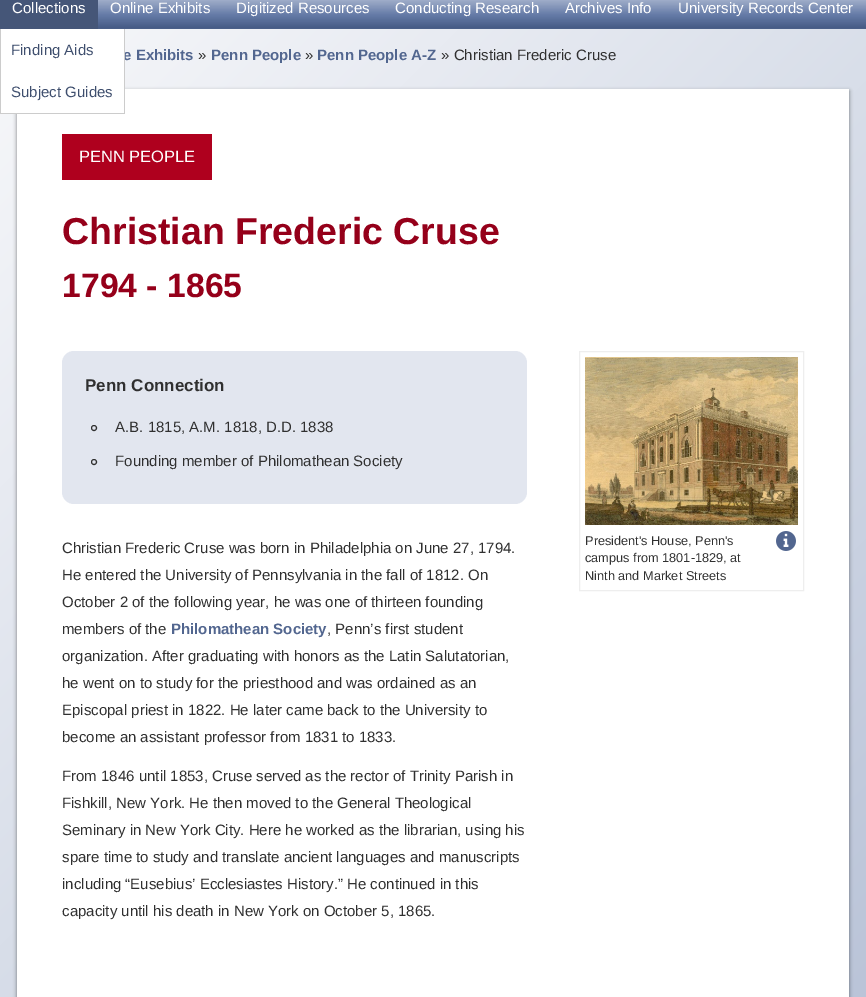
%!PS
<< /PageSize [866 997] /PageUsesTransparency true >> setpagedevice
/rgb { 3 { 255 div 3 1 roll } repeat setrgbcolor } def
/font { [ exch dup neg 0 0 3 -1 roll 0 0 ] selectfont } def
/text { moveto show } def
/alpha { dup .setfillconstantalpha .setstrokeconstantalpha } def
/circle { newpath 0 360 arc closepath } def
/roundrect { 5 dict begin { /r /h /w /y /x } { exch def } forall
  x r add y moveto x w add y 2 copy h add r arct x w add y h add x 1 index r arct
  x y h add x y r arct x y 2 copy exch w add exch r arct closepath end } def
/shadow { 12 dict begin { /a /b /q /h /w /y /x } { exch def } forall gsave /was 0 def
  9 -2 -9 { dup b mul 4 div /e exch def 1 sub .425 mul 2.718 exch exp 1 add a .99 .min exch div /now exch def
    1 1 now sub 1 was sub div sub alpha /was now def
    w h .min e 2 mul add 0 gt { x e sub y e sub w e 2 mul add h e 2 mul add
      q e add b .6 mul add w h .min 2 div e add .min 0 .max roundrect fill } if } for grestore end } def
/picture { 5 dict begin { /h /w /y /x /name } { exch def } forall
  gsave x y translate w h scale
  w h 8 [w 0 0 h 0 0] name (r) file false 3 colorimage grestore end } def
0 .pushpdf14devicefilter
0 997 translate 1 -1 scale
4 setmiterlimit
255 255 255 rgb
0 0 866 997 rectfill
gsave 0 29 moveto 866 0 rlineto 0 968 rlineto -866 0 rlineto closepath clip newpath
<< /ShadingType 2 /ColorSpace /DeviceRGB /Coords [-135 -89 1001 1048] /Extend [true true] /Function << /FunctionType 2 /Domain [0 1] /C0 [1 1 1] /C1 [0.706 0.749 0.835] /N 1 >> >> shfill grestore
(img_01.rgb) 98 0 768 29 picture
69 86 120 rgb
0 0 98 29 rectfill
0 0 0 rgb
17 91 832 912 0 2 0.5 shadow
255 255 255 rgb
17 89 832 908 rectfill
175 0 30 rgb
62 134 150 46 rectfill
226 230 239 rgb
62 351 465 153 12 roundrect fill
48 48 48 rgb
94 428 2.5 circle stroke
94 462 2.5 circle stroke
238 238 238 rgb
579.5 351.5 224 239 rectstroke
(img_02.rgb) 585 357 213 168 picture
(img_03.rgb) 776 531 20 20 picture
/LiberationSans-Regular 15 font
255 255 255 rgb
(Collections) 12 13 text
(Online Exhibits) 110 13 text
(Digitized Resources) 236 13 text
(Conducting Research) 395 13 text
(Archives Info) 565 13 text
(University Records Center) 678 13 text
/LiberationSans-Bold 15 font
82 102 143 rgb
(e Exhibits) 123 60 text
255 255 255 rgb
1 29 123 84 rectfill
/LiberationSans-Regular 15 font
63 79 110 rgb
(Subject Guides) 11 97 text
(Finding Aids) 11 55 text
204 204 204 rgb
124 29 1 85 rectfill
0 113 125 1 rectfill
0 29 1 85 rectfill
48 48 48 rgb
(») 198 60 text
/LiberationSans-Bold 15 font
82 102 143 rgb
(Penn People) 211 60 text
/LiberationSans-Regular 15 font
48 48 48 rgb
(») 305 60 text
/LiberationSans-Bold 15 font
82 102 143 rgb
(Penn People A-Z) 317 60 text
/LiberationSans-Regular 15 font
48 48 48 rgb
(» Christian Frederic Cruse) 441 60 text
/LiberationSans-Regular 16.5 font
255 255 255 rgb
(PENN PEOPLE) 79 162 text
/LiberationSans-Bold 37.5 font
149 0 26 rgb
(Christian Frederic Cruse) 62 244 text
/LiberationSans-Bold 33.75 font
(1794 - 1865) 62 297 text
/LiberationSans-Bold 17 font
48 48 48 rgb
(Penn Connection) 85 391 text
/LiberationSans-Regular 15 font
(A.B. 1815, A.M. 1818, D.D. 1838) 115 432 text
(Founding member of Philomathean Society) 115 466 text
(Christian Frederic Cruse was born in Philadelphia on June 27, 1794.) 62 553 text
(He entered the University of Pennsylvania in the fall of 1812. On) 62 580 text
(October 2 of the following year, he was one of thirteen founding) 62 607 text
(members of the) 62 634 text
/LiberationSans-Bold 15 font
82 102 143 rgb
(Philomathean Society) 171 634 text
/LiberationSans-Regular 15 font
48 48 48 rgb
(, Penn’s first student) 327 634 text
(organization. After graduating with honors as the Latin Salutatorian,) 62 661 text
(he went on to study for the priesthood and was ordained as an) 62 688 text
(Episcopal priest in 1822. He later came back to the University to) 62 715 text
(become an assistant professor from 1831 to 1833.) 62 742 text
(From 1846 until 1853, Cruse served as the rector of Trinity Parish in) 62 781 text
(Fishkill, New York. He then moved to the General Theological) 62 808 text
(Seminary in New York City. Here he worked as the librarian, using his) 62 835 text
(spare time to study and translate ancient languages and manuscripts) 62 862 text
(including “Eusebius’ Ecclesiastes History.” He continued in this) 62 889 text
(capacity until his death in New York on October 5, 1865.) 62 916 text
/LiberationSans-Regular 12.75 font
(President's House, Penn's) 585 545 text
(campus from 1801-1829, at) 585 562 text
(Ninth and Market Streets) 585 580 text
.poppdf14devicefilter showpage
